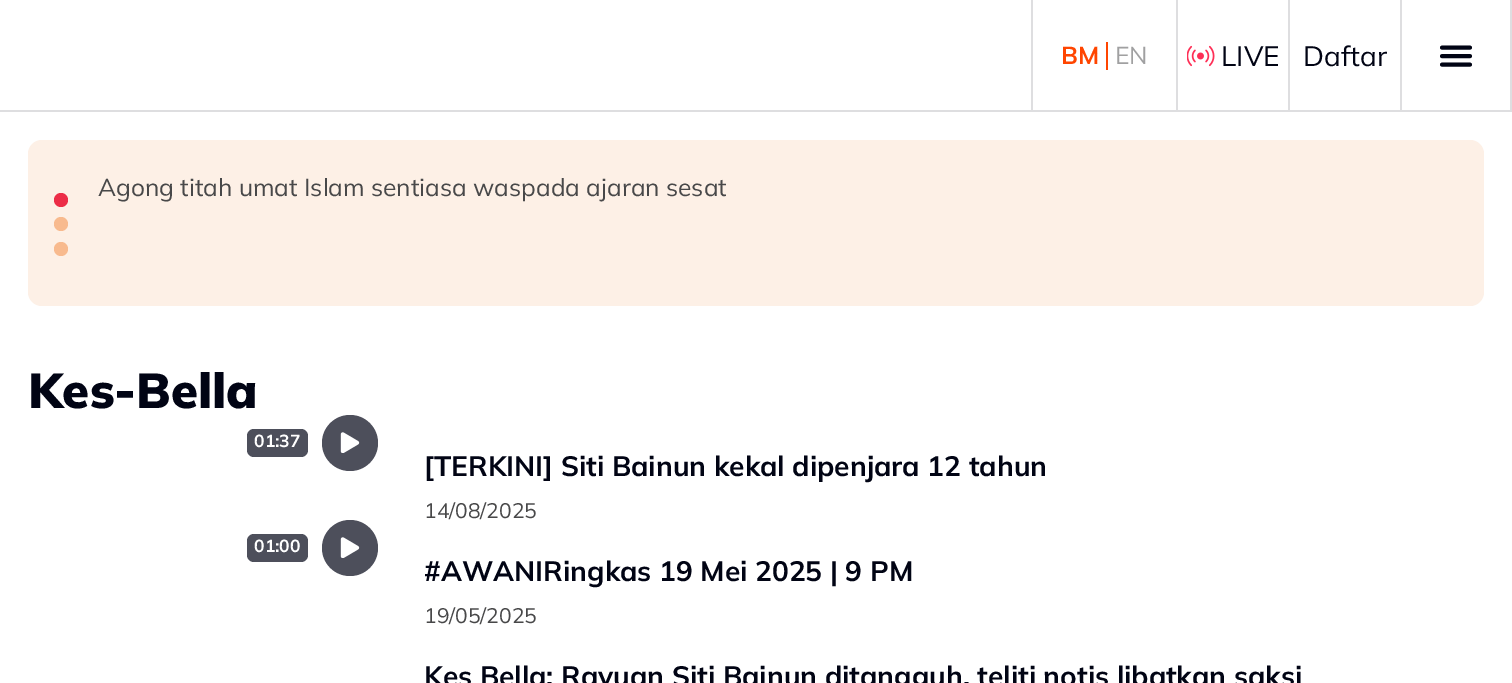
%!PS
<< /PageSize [1512 683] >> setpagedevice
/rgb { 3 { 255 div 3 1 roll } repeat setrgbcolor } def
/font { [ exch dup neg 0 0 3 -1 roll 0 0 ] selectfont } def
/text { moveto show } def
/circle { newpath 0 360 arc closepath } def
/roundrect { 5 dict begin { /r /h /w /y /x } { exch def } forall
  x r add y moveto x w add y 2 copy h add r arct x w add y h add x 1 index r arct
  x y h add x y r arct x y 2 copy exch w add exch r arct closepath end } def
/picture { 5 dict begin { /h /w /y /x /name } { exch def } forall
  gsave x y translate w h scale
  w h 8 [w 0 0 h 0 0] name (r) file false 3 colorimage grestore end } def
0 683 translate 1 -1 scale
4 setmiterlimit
255 255 255 rgb
0 0 1512 683 rectfill
222 222 224 rgb
0 110 1512 2 rectfill
1031 0 2 110 rectfill
255 69 0 rgb
1106 42 2 28 rectfill
222 222 224 rgb
1176 0 2 110 rectfill
(img_01.rgb) 1187 45 28 22 picture
1288 0 2 110 rectfill
1510 0 2 110 rectfill
1400 0 2 110 rectfill
1 4 20 rgb
3.9 setlinewidth
1 setlinecap
1442 47.5 moveto 28 0 rlineto 1442 56 moveto 28 0 rlineto 1442 64.5 moveto 28 0 rlineto stroke
253 240 230 rgb
28 140 1456 166 14 roundrect fill
236 45 71 rgb
61 200 7 circle fill
248 186 142 rgb
61 224 7 circle fill
61 249 7 circle fill
77 79 91 rgb
247 429 61 28 7 roundrect fill
350 443 28 circle fill
(img_02.rgb) 340 432 20 21 picture
247 534 61 28 7 roundrect fill
350 548 28 circle fill
(img_02.rgb) 340 537 20 21 picture
/Mulish-Bold 24.5 font
255 69 0 rgb
(BM) 1061 64 text
/Mulish-Regular 24.5 font
160 160 161 rgb
(EN) 1115 64 text
/Mulish-Regular 28 font
1 4 20 rgb
(LIVE) 1221 66 text
(Daftar) 1303 66 text
gsave
98 168 628 39 rectclip
/Mulish-Regular 24.5 font
72 72 73 rgb
(Agong titah umat Islam sentiasa waspada ajaran sesat) 98 196 text
grestore
/Mulish-Black 49 font
(Kes-Bella) 28 408 text
/Mulish-Bold 17.5 font
255 255 255 rgb
(01:37) 254 447 text
/Mulish-Bold 28 font
1 4 20 rgb
([TERKINI] Siti Bainun kekal dipenjara 12 tahun) 424 476 text
/Mulish-Regular 21 font
72 72 73 rgb
(14/08/2025) 424 518 text
/Mulish-Bold 17.5 font
255 255 255 rgb
(01:00) 254 552 text
/Mulish-Bold 28 font
1 4 20 rgb
(#AWANIRingkas 19 Mei 2025 | 9 PM) 424 581 text
/Mulish-Regular 21 font
72 72 73 rgb
(19/05/2025) 424 623 text
/Mulish-Bold 28 font
1 4 20 rgb
(Kes Bella: Rayuan Siti Bainun ditangguh, teliti notis libatkan saksi) 424 686 text
showpage
